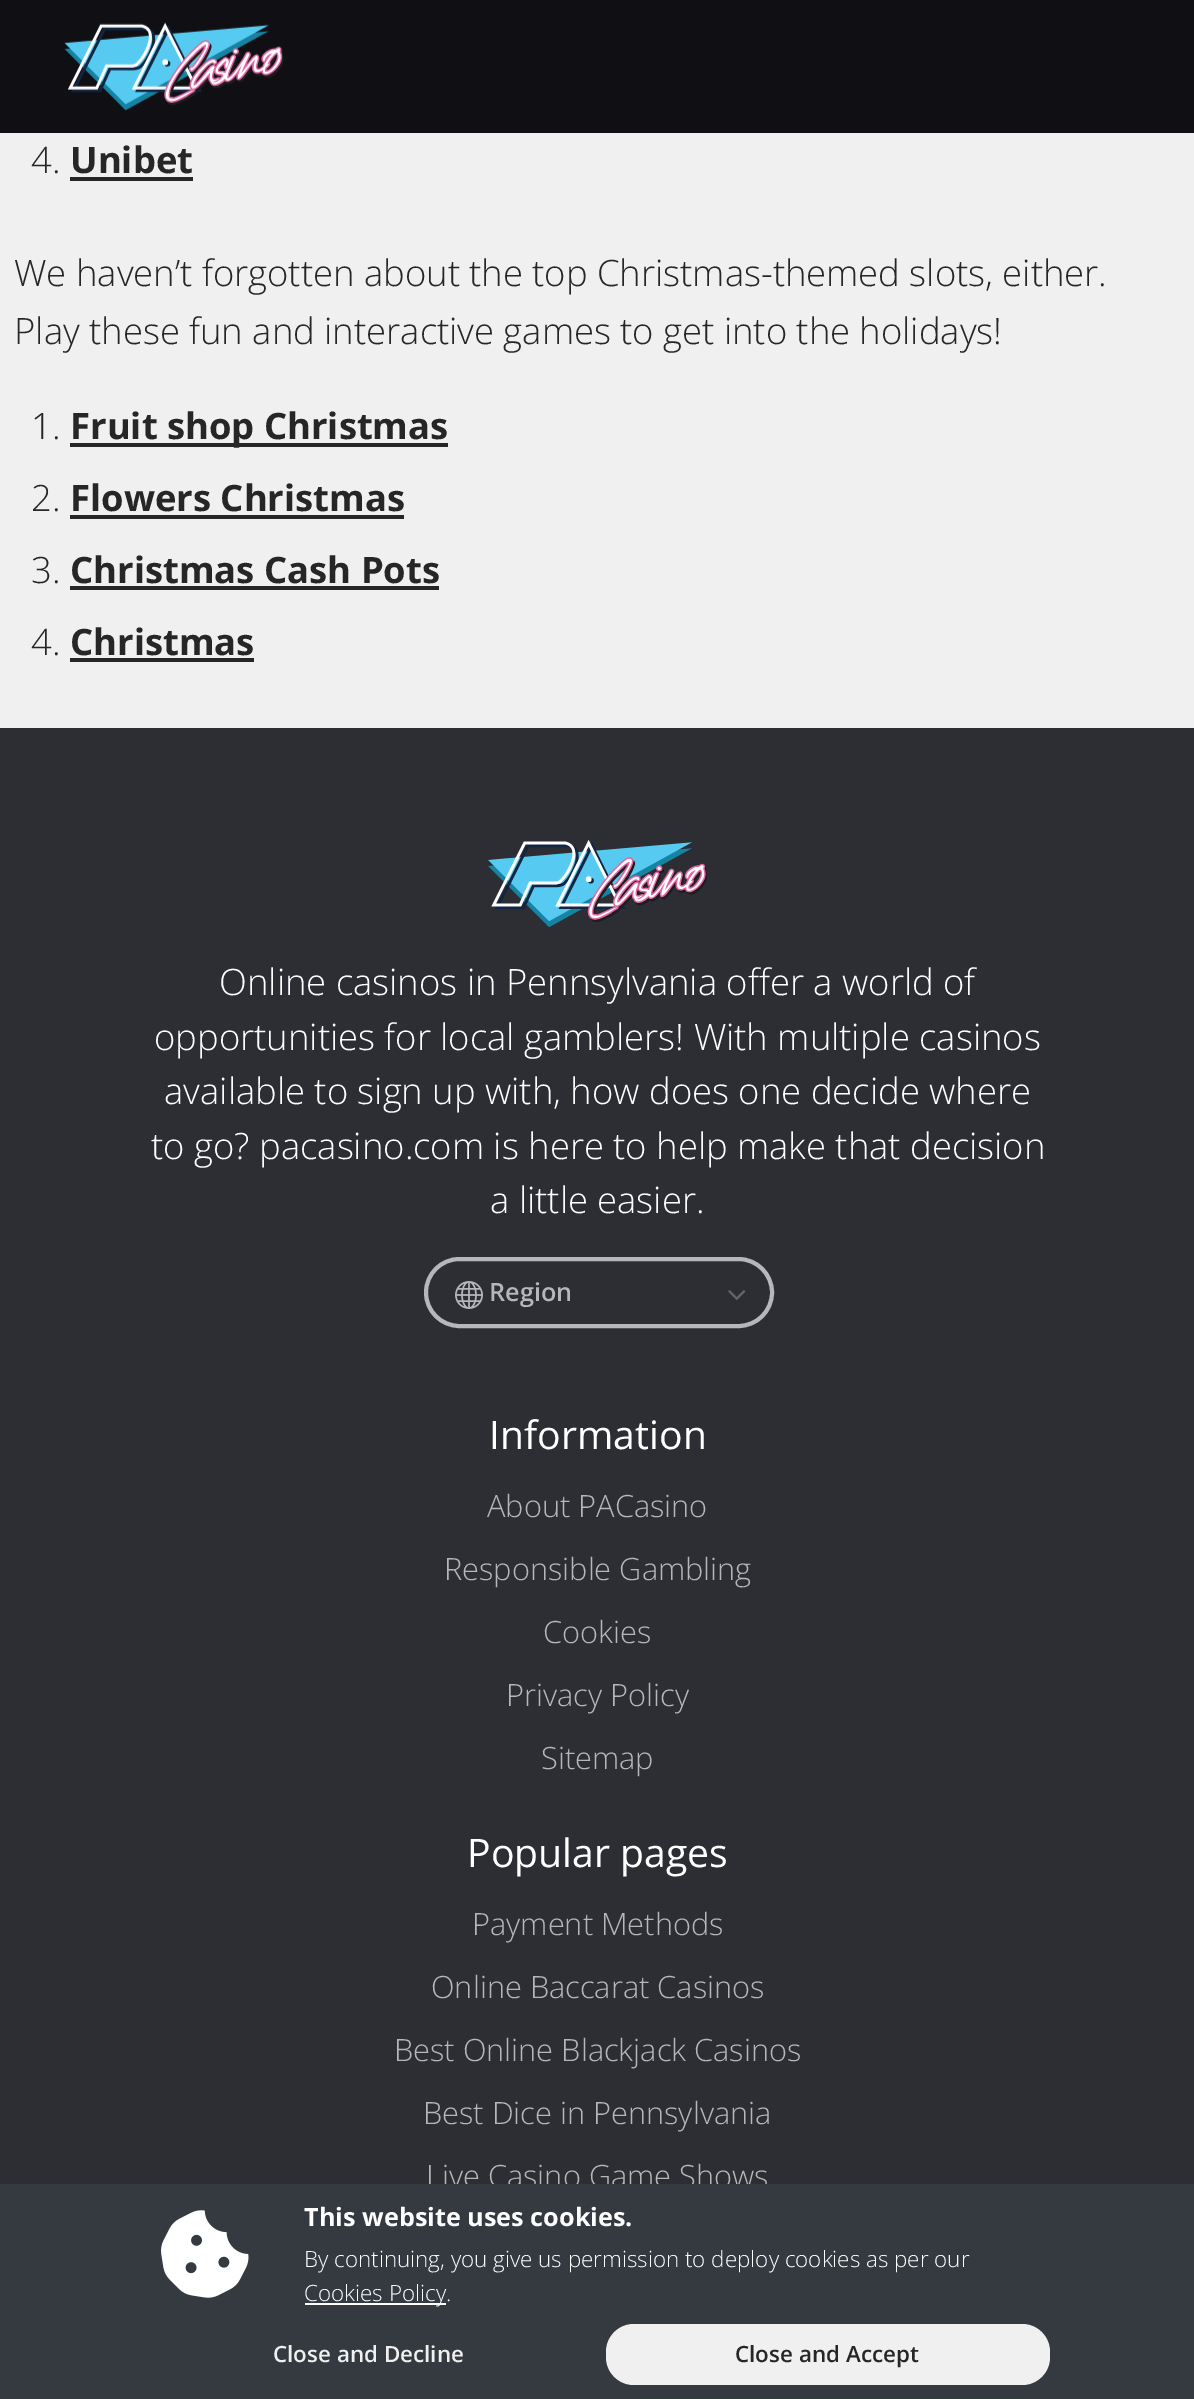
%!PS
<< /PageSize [1194 2399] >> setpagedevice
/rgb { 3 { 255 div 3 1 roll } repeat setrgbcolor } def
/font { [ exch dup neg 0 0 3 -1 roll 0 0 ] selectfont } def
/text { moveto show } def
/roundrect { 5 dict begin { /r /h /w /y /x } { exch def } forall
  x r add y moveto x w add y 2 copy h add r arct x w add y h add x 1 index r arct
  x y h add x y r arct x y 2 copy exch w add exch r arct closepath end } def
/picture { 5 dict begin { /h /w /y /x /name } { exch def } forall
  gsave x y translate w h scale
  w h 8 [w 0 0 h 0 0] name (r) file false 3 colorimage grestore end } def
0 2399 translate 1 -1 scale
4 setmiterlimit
240 240 240 rgb
0 0 1194 2399 rectfill
16 16 20 rgb
0 0 1194 133 rectfill
(img_01.rgb) 64 22 220 89 picture
38 38 38 rgb
70 177 123 4 rectfill
70 443 378 4 rectfill
70 515 334 4 rectfill
70 586 369 4 rectfill
70 658 184 4 rectfill
44 46 51 rgb
0 728 1194 1456 rectfill
(img_02.rgb) 488 840 219 87 picture
182 183 186 rgb
4 setlinewidth
426 1259 346 67 33.5 roundrect stroke
(img_03.rgb) 455 1281 28 28 picture
(img_04.rgb) 728 1290 18 10 picture
/OpenSans-Light 36.4 font
38 38 38 rgb
(4.) 31 173 text
/OpenSans-Bold 36.4 font
(Unibet) 70 173 text
/OpenSans-Light 36.4 font
(We haven’t forgotten about the top Christmas-themed slots, either.) 14 286 text
(Play these fun and interactive games to get into the holidays!) 14 344 text
(1.) 31 439 text
/OpenSans-Bold 36.4 font
(Fruit shop Christmas) 70 439 text
/OpenSans-Light 36.4 font
(2.) 31 511 text
/OpenSans-Bold 36.4 font
(Flowers Christmas) 70 511 text
/OpenSans-Light 36.4 font
(3.) 31 583 text
/OpenSans-Bold 36.4 font
(Christmas Cash Pots) 70 583 text
/OpenSans-Light 36.4 font
(4.) 31 655 text
/OpenSans-Bold 36.4 font
(Christmas) 70 655 text
/OpenSans-Light 36.4 font
255 255 255 rgb
(Online casinos in Pennsylvania offer a world of) 219 995 text
(opportunities for local gamblers! With multiple casinos) 154 1050 text
(available to sign up with, how does one decide where) 164 1104 text
(to go? pacasino.com is here to help make that decision) 151 1159 text
(a little easier.) 490 1213 text
/OpenSans-SemiBold 25.25 font
182 183 186 rgb
(Region) 489 1301 text
/OpenSans-Regular 39.25 font
255 255 255 rgb
(Information) 489 1449 text
/OpenSans-Light 30.75 font
182 183 186 rgb
(About PACasino) 487 1517 text
(Responsible Gambling) 444 1580 text
(Cookies) 543 1643 text
(Privacy Policy) 506 1706 text
(Sitemap) 541 1769 text
/OpenSans-Regular 39.25 font
255 255 255 rgb
(Popular pages) 467 1867 text
/OpenSans-Light 30.75 font
182 183 186 rgb
(Payment Methods) 472 1935 text
(Online Baccarat Casinos) 431 1998 text
(Best Online Blackjack Casinos) 394 2061 text
(Best Dice in Pennsylvania) 423 2124 text
(Live Casino Game Shows) 426 2187 text
52 58 64 rgb
0 2184 1194 215 rectfill
(img_05.rgb) 161 2210 88 88 picture
/OpenSans-Bold 25.25 font
255 255 255 rgb
(This website uses cookies.) 304 2226 text
/OpenSans-Light 22.4 font
(By continuing, you give us permission to deploy cookies as per our) 304 2267 text
305 2303 141 2 rectfill
(Cookies Policy.) 304 2301 text
/OpenSans-SemiBold 22.4 font
240 240 240 rgb
(Close and Decline) 273 2362 text
606 2324 444 61 28 roundrect fill
38 38 38 rgb
(Close and Accept) 735 2362 text
showpage
